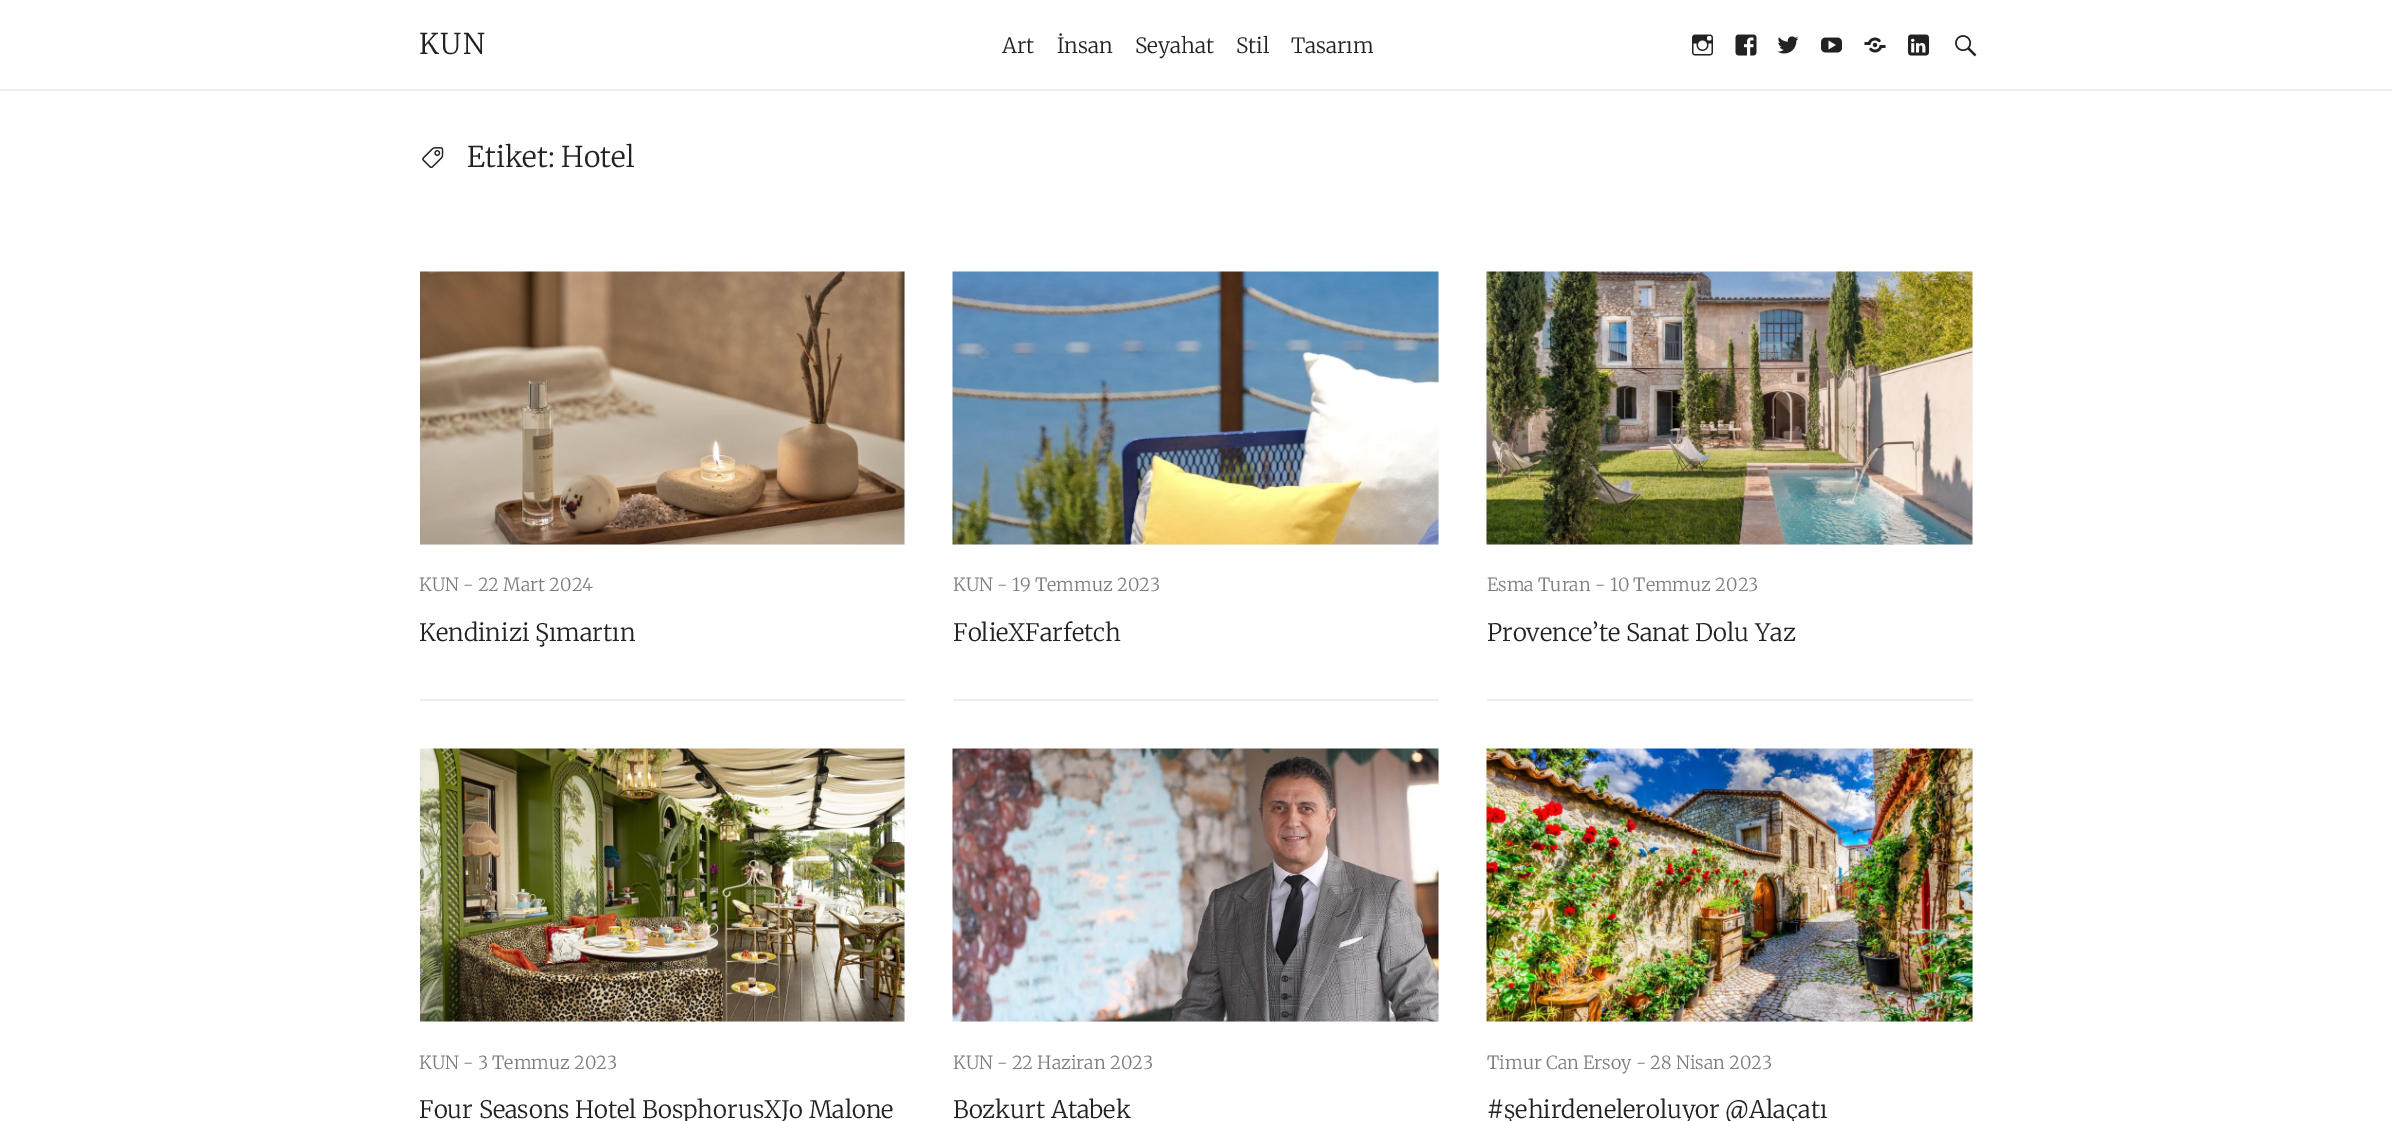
%!PS
<< /PageSize [2392 1121] >> setpagedevice
/rgb { 3 { 255 div 3 1 roll } repeat setrgbcolor } def
/font { [ exch dup neg 0 0 3 -1 roll 0 0 ] selectfont } def
/text { moveto show } def
/picture { 5 dict begin { /h /w /y /x /name } { exch def } forall
  gsave x y translate w h scale
  w h 8 [w 0 0 h 0 0] name (r) file false 3 colorimage grestore end } def
0 1121 translate 1 -1 scale
4 setmiterlimit
255 255 255 rgb
0 0 2392 1121 rectfill
236 240 241 rgb
0 89 2392 2 rectfill
(img_01.rgb) 1692 34 21 22 picture
(img_02.rgb) 1735 34 22 22 picture
(img_03.rgb) 1777 36 22 18 picture
(img_04.rgb) 1821 37 21 16 picture
(img_05.rgb) 1864 37 22 16 picture
(img_06.rgb) 1908 34 21 22 picture
(img_07.rgb) 1955 35 22 22 picture
(img_08.rgb) 422 147 22 22 picture
420 699 485 2 rectfill
250 250 250 rgb
420 272 485 273 rectfill
(img_09.rgb) 420 271 485 274 picture
236 240 241 rgb
953 699 486 2 rectfill
250 250 250 rgb
953 272 486 273 rectfill
(img_10.rgb) 952 271 487 274 picture
236 240 241 rgb
1487 699 486 2 rectfill
250 250 250 rgb
1487 272 486 273 rectfill
(img_11.rgb) 1486 271 487 274 picture
420 749 485 273 rectfill
(img_12.rgb) 420 748 485 274 picture
953 749 486 273 rectfill
(img_13.rgb) 952 748 487 274 picture
1487 749 486 273 rectfill
(img_14.rgb) 1486 748 487 274 picture
/Merriweather-Light 28.5 font
34 34 34 rgb
419 54 moveto 1.5 0 (KUN) ashow
/Merriweather-Light 21 font
(Art) 1002 53 text
(İnsan) 1057 53 text
(Seyahat) 1135 53 text
(Stil) 1236 53 text
(Tasarım) 1291 53 text
/Merriweather-Light 28.5 font
(Etiket: Hotel) 467 167 text
/Merriweather-Light 18 font
126 126 126 rgb
(KUN - 22 Mart 2024) 419 591 text
/Merriweather-Light 24 font
34 34 34 rgb
(Kendinizi Şımartın) 419 641 text
/Merriweather-Light 18 font
126 126 126 rgb
(KUN - 19 Temmuz 2023) 953 591 text
/Merriweather-Light 24 font
34 34 34 rgb
(FolieXFarfetch) 953 641 text
/Merriweather-Light 18 font
126 126 126 rgb
(Esma Turan - 10 Temmuz 2023) 1487 591 text
/Merriweather-Light 24 font
34 34 34 rgb
(Provence’te Sanat Dolu Yaz) 1487 641 text
/Merriweather-Light 18 font
126 126 126 rgb
(KUN - 3 Temmuz 2023) 419 1069 text
/Merriweather-Light 24 font
34 34 34 rgb
(Four Seasons Hotel BosphorusXJo Malone) 419 1118 text
/Merriweather-Light 18 font
126 126 126 rgb
(KUN - 22 Haziran 2023) 953 1069 text
/Merriweather-Light 24 font
34 34 34 rgb
(Bozkurt Atabek) 953 1118 text
/Merriweather-Light 18 font
126 126 126 rgb
(Timur Can Ersoy - 28 Nisan 2023) 1487 1069 text
/Merriweather-Light 24 font
34 34 34 rgb
(#şehirdeneleroluyor @Alaçatı) 1487 1118 text
showpage
